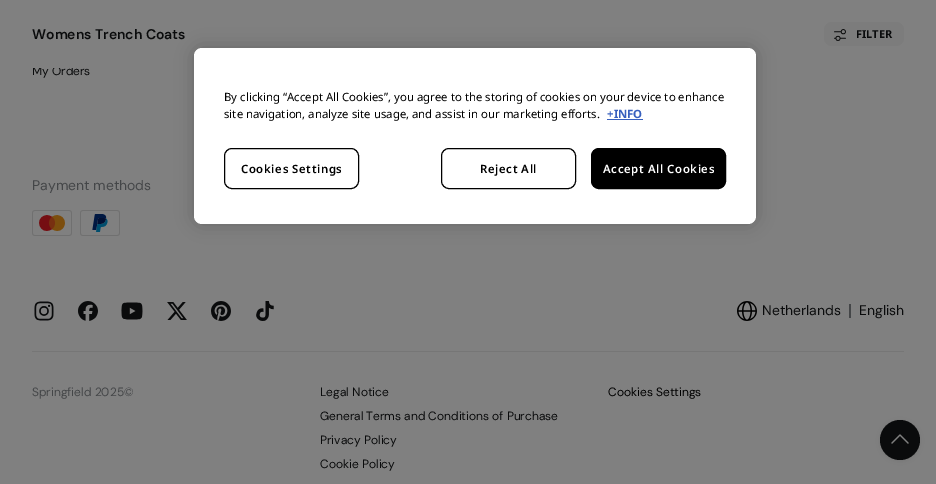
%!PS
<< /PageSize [936 484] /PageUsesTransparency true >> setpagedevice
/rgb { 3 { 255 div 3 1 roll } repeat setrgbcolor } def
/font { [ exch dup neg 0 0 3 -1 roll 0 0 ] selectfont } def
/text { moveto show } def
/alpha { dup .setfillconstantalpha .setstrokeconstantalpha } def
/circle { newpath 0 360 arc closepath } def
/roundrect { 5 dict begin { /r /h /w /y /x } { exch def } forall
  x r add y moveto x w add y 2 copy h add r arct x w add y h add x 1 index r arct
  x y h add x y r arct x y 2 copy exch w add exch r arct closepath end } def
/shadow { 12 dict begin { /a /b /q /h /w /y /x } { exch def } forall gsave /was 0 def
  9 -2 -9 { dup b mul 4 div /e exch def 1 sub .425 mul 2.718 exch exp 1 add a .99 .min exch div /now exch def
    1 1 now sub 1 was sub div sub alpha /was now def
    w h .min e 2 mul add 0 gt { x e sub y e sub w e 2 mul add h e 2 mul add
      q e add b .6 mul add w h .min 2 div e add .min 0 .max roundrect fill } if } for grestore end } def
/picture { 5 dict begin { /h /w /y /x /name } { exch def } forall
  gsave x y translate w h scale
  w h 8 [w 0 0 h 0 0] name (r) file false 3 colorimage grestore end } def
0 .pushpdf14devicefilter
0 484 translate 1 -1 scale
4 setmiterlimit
128 128 128 rgb
0 0 936 484 rectfill
124 124 124 rgb
824 22 80 24 8 roundrect fill
(img_01.rgb) 834 29 12 12 picture
0 0 0 rgb
880 421 40 40 20 2 0.08 shadow
10 11 12 rgb
900 440 20 circle fill
(img_02.rgb) 891 434 18 10 picture
(img_03.rgb) 32 210 40 26 picture
(img_04.rgb) 80 210 40 26 picture
118 118 118 rgb
32 351 872 1 rectfill
(img_05.rgb) 34 301 20 20 picture
(img_06.rgb) 78 301 20 20 picture
(img_07.rgb) 121 302 22 18 picture
(img_08.rgb) 167 302 20 18 picture
(img_09.rgb) 211 301 20 20 picture
(img_10.rgb) 256 301 18 20 picture
(img_11.rgb) 737 301 20 20 picture
68 70 72 rgb
849 304 2 14 rectfill
0 0 0 rgb
194 48 562 176 8 9 0.2 shadow
255 255 255 rgb
194 48 562 176 8 roundrect fill
56 96 190 rgb
607 119 36 1 rectfill
0 0 0 rgb
224.5 148.5 134 40 7.5 roundrect stroke
441.5 148.5 134 40 7.5 roundrect stroke
591.5 148.5 134 40 7.5 roundrect gsave fill grestore
stroke
/DMSans-SemiBold 14 font
10 11 12 rgb
(Womens Trench Coats) 32 39 text
/NotoSans-Bold 11 font
(FILTER) 856 38 text
/DMSans-Regular 12 font
(My Orders) 32 75 text
128 128 128 rgb
32 66 41 2 rectfill
/DMSans-Regular 14 font
68 70 72 rgb
(Payment methods) 32 190 text
10 11 12 rgb
(Netherlands) 762 315 text
(English) 859 315 text
/DMSans-Regular 12 font
68 70 72 rgb
(Springfield 2025©) 32 396 text
10 11 12 rgb
(Legal Notice) 320 396 text
0 0 0 rgb
(Cookies Settings) 608 396 text
10 11 12 rgb
(General Terms and Conditions of Purchase) 320 420 text
(Privacy Policy) 320 444 text
(Cookie Policy) 320 468 text
/NotoSans-Regular 11.4 font
0 0 0 rgb
(By clicking “Accept All Cookies”, you agree to the storing of cookies on your device to enhance) 224 101 text
(site navigation, analyze site usage, and assist in our marketing efforts.) 224 118 text
/NotoSans-Bold 11.4 font
56 96 190 rgb
(+INFO) 607 118 text
/NotoSans-SemiBold 11.4 font
0 0 0 rgb
241 173 moveto 0.6 0 (Cookies Settings) ashow
480 173 moveto 0.6 0 (Reject All) ashow
255 255 255 rgb
603 173 moveto 0.6 0 (Accept All Cookies) ashow
.poppdf14devicefilter showpage
